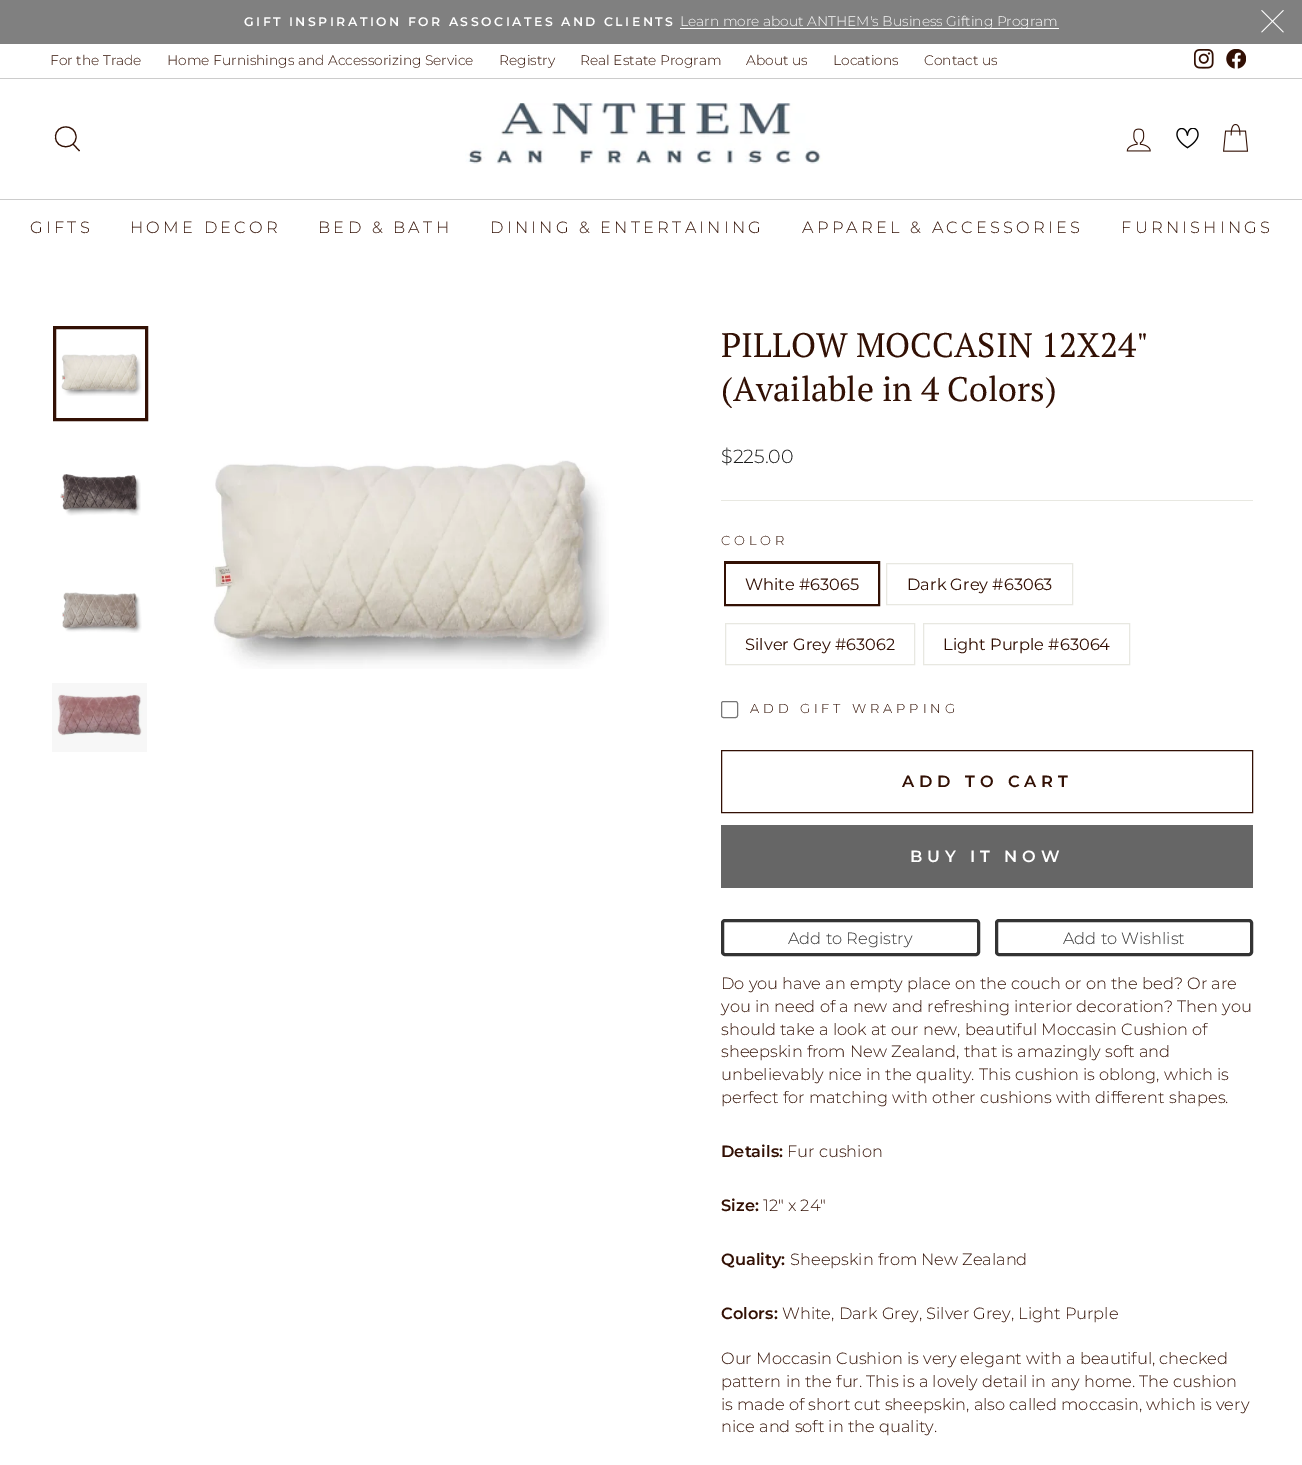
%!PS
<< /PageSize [1302 1465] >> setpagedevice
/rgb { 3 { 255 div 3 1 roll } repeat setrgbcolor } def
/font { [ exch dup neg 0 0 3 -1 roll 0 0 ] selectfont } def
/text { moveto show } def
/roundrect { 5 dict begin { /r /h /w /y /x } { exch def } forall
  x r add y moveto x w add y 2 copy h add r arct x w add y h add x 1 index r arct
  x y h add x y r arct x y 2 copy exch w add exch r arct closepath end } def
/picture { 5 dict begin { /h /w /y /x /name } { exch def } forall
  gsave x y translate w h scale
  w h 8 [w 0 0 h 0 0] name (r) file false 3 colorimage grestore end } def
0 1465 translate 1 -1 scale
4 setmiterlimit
255 255 255 rgb
0 0 1302 1465 rectfill
128 128 128 rgb
0 0 1302 44 rectfill
255 255 255 rgb
680 28 379 1 rectfill
(img_01.rgb) 1261 10 23 23 picture
(img_02.rgb) 1194 49 20 20 picture
(img_03.rgb) 1226 49 20 20 picture
204 204 204 rgb
0 78 1302 1 rectfill
50 16 4 rgb
1.1 setlinewidth
76 137 moveto 0 13 -20.5 13 -20.5 0 rcurveto 0 -13.5 20.5 -13.5 20.5 0 rcurveto closepath 79.5 151 moveto -6.5 -7 rlineto stroke
(img_04.rgb) 465 103 358 61 picture
(img_05.rgb) 1126 128 25 24 picture
(img_06.rgb) 1176 128 23 21 picture
(img_07.rgb) 1223 124 26 28 picture
204 204 204 rgb
0 199 1302 1 rectfill
(img_08.rgb) 61 353 81 43 picture
50 16 4 rgb
3 setlinewidth
54.5 327.5 92 92 rectstroke
(img_09.rgb) 60 474 81 42 picture
(img_10.rgb) 62 592 80 41 picture
(img_11.rgb) 52 683 95 69 picture
(img_12.rgb) 213 460 396 209 picture
232 232 225 rgb
721 500 532 1 rectfill
50 16 4 rgb
725.5 562.5 153 42 rectstroke
255 255 255 rgb
726 564 152 40 rectfill
232 232 225 rgb
1 setlinewidth
886.5 563.5 186 41 rectstroke
725.5 623.5 189 41 rectstroke
923.5 623.5 206 41 rectstroke
118 118 118 rgb
721.5 701.5 16 16 2 roundrect stroke
50 16 4 rgb
721.5 750.5 531 62 rectstroke
102 102 102 rgb
721 825 532 63 rectfill
51 51 51 rgb
3 setlinewidth
722.5 920.5 256 34 2.5 roundrect stroke
996.5 920.5 255 34 2.5 roundrect stroke
/Montserrat-SemiBold 12.45 font
255 255 255 rgb
244 26 moveto 2.5 0 (GIFT INSPIRATION FOR ASSOCIATES AND CLIENTS) ashow
/Montserrat-Light 13.8 font
(Learn more about ANTHEM's Business Gifting Program) 680 26 text
50 16 4 rgb
(For the Trade) 50 65 text
(Home Furnishings and Accessorizing Service) 167 65 text
(Registry) 499 65 text
(Real Estate Program) 580 65 text
(About us) 746 65 text
(Locations) 833 65 text
(Contact us) 924 65 text
/Montserrat-Light 16.25 font
30 233 moveto 3.25 0 (GIFTS) ashow
130 233 moveto 3.25 0 (HOME DECOR) ashow
318 233 moveto 3.25 0 (BED & BATH) ashow
490 233 moveto 3.25 0 (DINING & ENTERTAINING) ashow
802 233 moveto 3.25 0 (APPAREL & ACCESSORIES) ashow
1121 233 moveto 3.25 0 (FURNISHINGS) ashow
/PTSerif-Regular 34 font
(PILLOW MOCCASIN 12X24") 721 357 text
(\(Available in 4 Colors\)) 721 401 text
/Montserrat-Light 19 font
28 29 29 rgb
($225.00) 721 463 text
/Montserrat-Light 13 font
50 16 4 rgb
721 545 moveto 3.9 0 (COLOR) ashow
/Montserrat-Regular 16.25 font
(White #63065) 745 590 text
(Dark Grey #63063) 907 590 text
(Silver Grey #63062) 745 650 text
(Light Purple #63064) 943 650 text
/Montserrat-Light 13 font
750 713 moveto 3.9 0 (ADD GIFT WRAPPING) ashow
/Montserrat-SemiBold 16.25 font
902 787 moveto 4.9 0 (ADD TO CART) ashow
255 255 255 rgb
910 862 moveto 4.9 0 (BUY IT NOW) ashow
/Montserrat-Light 16.25 font
51 51 51 rgb
(Add to Registry) 788 944 text
(Add to Wishlist) 1063 944 text
50 16 4 rgb
(Do you have an empty place on the couch or on the bed? Or are) 721 989 text
(you in need of a new and refreshing interior decoration? Then you) 721 1012 text
(should take a look at our new, beautiful Moccasin Cushion of) 721 1035 text
(sheepskin from New Zealand, that is amazingly soft and) 721 1057 text
(unbelievably nice in the quality. This cushion is oblong, which is) 721 1080 text
(perfect for matching with other cushions with different shapes.) 721 1103 text
/Montserrat-SemiBold 16.25 font
(Details:) 721 1157 text
/Montserrat-Light 16.25 font
(Fur cushion) 787 1157 text
/Montserrat-SemiBold 16.25 font
(Size:) 721 1211 text
/Montserrat-Light 16.25 font
(12" x 24") 763 1211 text
/Montserrat-SemiBold 16.25 font
(Quality:) 721 1265 text
/Montserrat-Light 16.25 font
(Sheepskin from New Zealand) 790 1265 text
/Montserrat-SemiBold 16.25 font
(Colors:) 721 1319 text
/Montserrat-Light 16.25 font
(White, Dark Grey, Silver Grey, Light Purple) 782 1319 text
(Our Moccasin Cushion is very elegant with a beautiful, checked) 721 1364 text
(pattern in the fur. This is a lovely detail in any home. The cushion) 721 1387 text
(is made of short cut sheepskin, also called moccasin, which is very) 721 1410 text
(nice and soft in the quality.) 721 1432 text
showpage
